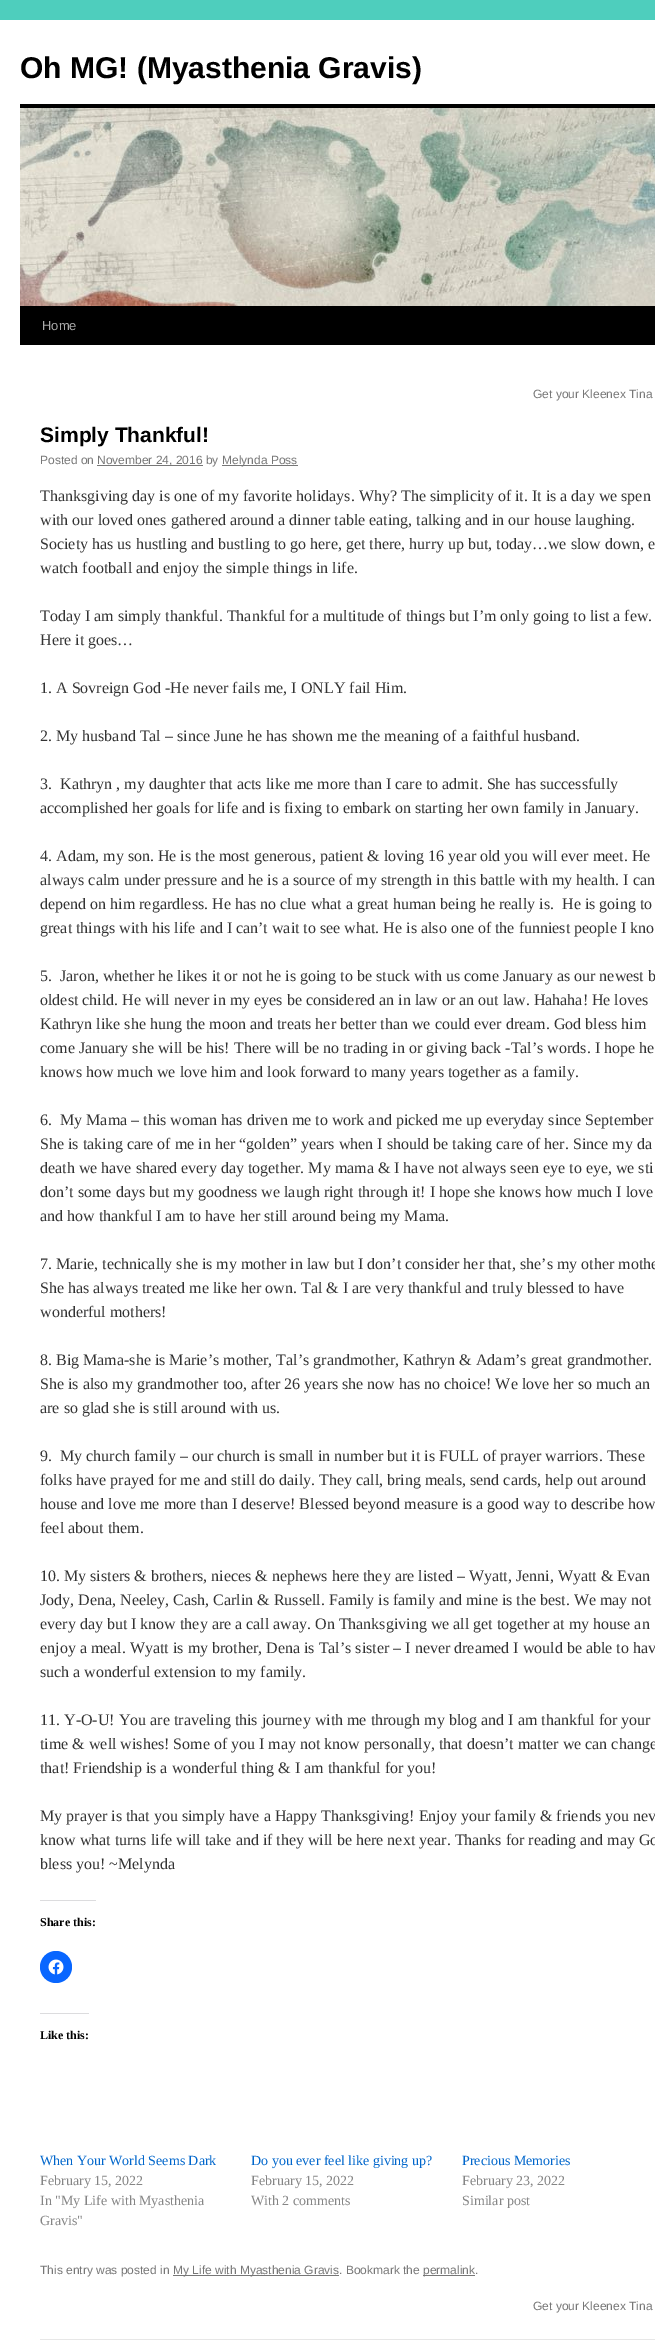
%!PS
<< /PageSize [655 2348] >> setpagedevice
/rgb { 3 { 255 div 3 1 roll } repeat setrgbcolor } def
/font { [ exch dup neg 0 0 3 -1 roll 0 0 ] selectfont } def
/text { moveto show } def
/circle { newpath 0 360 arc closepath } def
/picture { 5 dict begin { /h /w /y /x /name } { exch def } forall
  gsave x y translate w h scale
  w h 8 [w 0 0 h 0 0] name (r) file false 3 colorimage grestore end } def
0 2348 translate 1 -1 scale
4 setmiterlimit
78 206 189 rgb
0 0 655 2348 rectfill
255 255 255 rgb
0 20 655 2328 rectfill
0 0 0 rgb
20 104 635 4 rectfill
20 306 635 39 rectfill
(img_01.rgb) 20 108 635 198 picture
119 119 119 rgb
97 465 106 1 rectfill
222 465 76 1 rectfill
220 220 222 rgb
40 1900 56 1 rectfill
8 102 255 rgb
56 1967 16 circle fill
(img_02.rgb) 48 1959 16 16 picture
220 220 222 rgb
40 2013 49 1 rectfill
119 119 119 rgb
173 2275 166 1 rectfill
423 2275 52 1 rectfill
231 231 231 rgb
40 2339 615 1 rectfill
/LiberationSans-Bold 30 font
0 0 0 rgb
(Oh MG! \(Myasthenia Gravis\)) 20 78 text
/LiberationSans-Regular 13 font
170 170 170 rgb
(Home) 42 330 text
/LiberationSans-Regular 12 font
119 119 119 rgb
(Get your Kleenex Tina) 533 398 text
/LiberationSans-Bold 21 font
0 0 0 rgb
(Simply Thankful!) 40 442 text
/LiberationSans-Regular 12 font
119 119 119 rgb
(Posted on) 40 464 text
(November 24, 2016 by) 97 464 text
(Melynda Poss) 222 464 text
/LiberationSerif-Regular 16 font
51 51 51 rgb
(Thanksgiving day is one of my favorite holidays. Why? The simplicity of it. It is a day we spen) 40 501 text
(with our loved ones gathered around a dinner table eating, talking and in our house laughing.) 40 525 text
(Society has us hustling and bustling to go here, get there, hurry up but, today…we slow down, e) 40 549 text
(watch football and enjoy the simple things in life.) 40 573 text
(Today I am simply thankful. Thankful for a multitude of things but I’m only going to list a few.) 40 621 text
(Here it goes…) 40 645 text
(1. A Sovreign God -He never fails me, I ONLY fail Him.) 40 693 text
(2. My husband Tal – since June he has shown me the meaning of a faithful husband.) 40 741 text
(3.  Kathryn , my daughter that acts like me more than I care to admit. She has successfully) 40 789 text
(accomplished her goals for life and is fixing to embark on starting her own family in January.) 40 813 text
(4. Adam, my son. He is the most generous, patient & loving 16 year old you will ever meet. He) 40 861 text
(always calm under pressure and he is a source of my strength in this battle with my health. I can) 40 885 text
(depend on him regardless. He has no clue what a great human being he really is.  He is going to) 40 909 text
(great things with his life and I can’t wait to see what. He is also one of the funniest people I kno) 40 933 text
(5.  Jaron, whether he likes it or not he is going to be stuck with us come January as our newest b) 40 981 text
(oldest child. He will never in my eyes be considered an in law or an out law. Hahaha! He loves) 40 1005 text
(Kathryn like she hung the moon and treats her better than we could ever dream. God bless him) 40 1029 text
(come January she will be his! There will be no trading in or giving back -Tal’s words. I hope he) 40 1053 text
(knows how much we love him and look forward to many years together as a family.) 40 1077 text
(6.  My Mama – this woman has driven me to work and picked me up everyday since September) 40 1125 text
(She is taking care of me in her “golden” years when I should be taking care of her. Since my da) 40 1149 text
(death we have shared every day together. My mama & I have not always seen eye to eye, we sti) 40 1173 text
(don’t some days but my goodness we laugh right through it! I hope she knows how much I love) 40 1197 text
(and how thankful I am to have her still around being my Mama.) 40 1221 text
(7. Marie, technically she is my mother in law but I don’t consider her that, she’s my other mothe) 40 1269 text
(She has always treated me like her own. Tal & I are very thankful and truly blessed to have) 40 1293 text
(wonderful mothers!) 40 1317 text
(8. Big Mama-she is Marie’s mother, Tal’s grandmother, Kathryn & Adam’s great grandmother.) 40 1365 text
(She is also my grandmother too, after 26 years she now has no choice! We love her so much an) 40 1389 text
(are so glad she is still around with us.) 40 1413 text
(9.  My church family – our church is small in number but it is FULL of prayer warriors. These) 40 1461 text
(folks have prayed for me and still do daily. They call, bring meals, send cards, help out around) 40 1485 text
(house and love me more than I deserve! Blessed beyond measure is a good way to describe how) 40 1509 text
(feel about them.) 40 1533 text
(10. My sisters & brothers, nieces & nephews here they are listed – Wyatt, Jenni, Wyatt & Evan) 40 1581 text
(Jody, Dena, Neeley, Cash, Carlin & Russell. Family is family and mine is the best. We may not) 40 1605 text
(every day but I know they are a call away. On Thanksgiving we all get together at my house an) 40 1629 text
(enjoy a meal. Wyatt is my brother, Dena is Tal’s sister – I never dreamed I would be able to hav) 40 1653 text
(such a wonderful extension to my family.) 40 1677 text
(11. Y-O-U! You are traveling this journey with me through my blog and I am thankful for your) 40 1725 text
(time & well wishes! Some of you I may not know personally, that doesn’t matter we can change) 40 1749 text
(that! Friendship is a wonderful thing & I am thankful for you!) 40 1773 text
(My prayer is that you simply have a Happy Thanksgiving! Enjoy your family & friends you nev) 40 1821 text
(know what turns life will take and if they will be here next year. Thanks for reading and may Go) 40 1845 text
(bless you! ~Melynda) 40 1869 text
/LiberationSerif-Bold 12 font
0 0 0 rgb
(Share this:) 40 1926 text
(Like this:) 40 2039 text
/LiberationSerif-Regular 14 font
0 102 204 rgb
(When Your World Seems Dark) 40 2165 text
133 133 133 rgb
(February 15, 2022) 40 2185 text
(In "My Life with Myasthenia) 40 2205 text
(Gravis") 40 2225 text
0 102 204 rgb
(Do you ever feel like giving up?) 251 2165 text
133 133 133 rgb
(February 15, 2022) 251 2185 text
(With 2 comments) 251 2205 text
0 102 204 rgb
(Precious Memories) 462 2165 text
133 133 133 rgb
(February 23, 2022) 462 2185 text
(Similar post) 462 2205 text
/LiberationSans-Regular 12 font
119 119 119 rgb
(This entry was posted in) 40 2274 text
(My Life with Myasthenia Gravis. Bookmark the) 173 2274 text
(permalink.) 423 2274 text
(Get your Kleenex Tina) 533 2310 text
showpage
